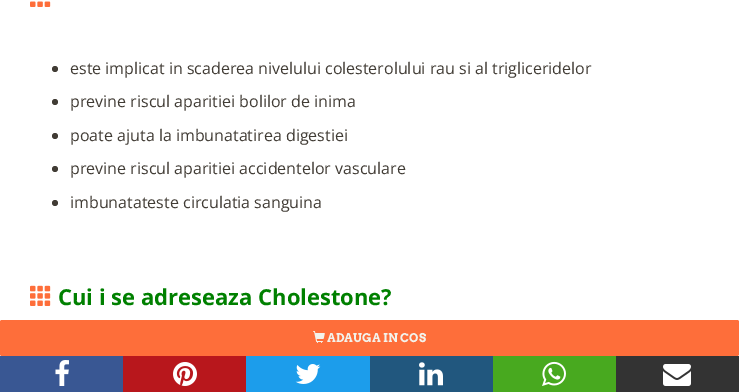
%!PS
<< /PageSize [739 392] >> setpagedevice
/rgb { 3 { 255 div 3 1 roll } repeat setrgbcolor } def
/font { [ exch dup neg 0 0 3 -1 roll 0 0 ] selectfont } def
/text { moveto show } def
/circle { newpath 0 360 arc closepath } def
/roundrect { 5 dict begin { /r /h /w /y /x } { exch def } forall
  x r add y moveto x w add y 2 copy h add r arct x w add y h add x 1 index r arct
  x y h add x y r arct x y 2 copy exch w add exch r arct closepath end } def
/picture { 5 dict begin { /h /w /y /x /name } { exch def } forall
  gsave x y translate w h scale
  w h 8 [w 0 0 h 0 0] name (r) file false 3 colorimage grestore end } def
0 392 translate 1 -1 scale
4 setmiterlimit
255 255 255 rgb
0 0 739 392 rectfill
(img_01.rgb) 30 1 21 6 picture
65 60 53 rgb
55 69 3 circle fill
55 102 3 circle fill
55 136 3 circle fill
55 169 3 circle fill
55 203 3 circle fill
(img_02.rgb) 30 285 21 21 picture
254 110 58 rgb
0 320 739 36 2 roundrect fill
(img_03.rgb) 313 331 12 12 picture
57 87 147 rgb
0 356 123 36 rectfill
(img_04.rgb) 55 360 14 26 picture
184 23 28 rgb
123 356 123 36 rectfill
(img_05.rgb) 173 362 24 24 picture
28 157 235 rgb
246 356 124 36 rectfill
(img_06.rgb) 295 364 26 20 picture
33 87 126 rgb
370 356 123 36 rectfill
(img_07.rgb) 419 362 24 24 picture
72 169 31 rgb
493 356 123 36 rectfill
(img_08.rgb) 542 361 24 25 picture
51 51 51 rgb
616 356 123 36 rectfill
(img_09.rgb) 663 364 28 22 picture
/OpenSans-Regular 16 font
65 60 53 rgb
(este implicat in scaderea nivelului colesterolului rau si al trigliceridelor) 70 74 text
(previne riscul aparitiei bolilor de inima) 70 107 text
(poate ajuta la imbunatatirea digestiei) 70 141 text
(previne riscul aparitiei accidentelor vasculare) 70 174 text
(imbunatateste circulatia sanguina) 70 208 text
/OpenSans-Bold 22 font
0 128 0 rgb
(Cui i se adreseaza Cholestone?) 58 305 text
/Arvo-Bold 12 font
243 242 235 rgb
(ADAUGA IN COS) 327 342 text
showpage
